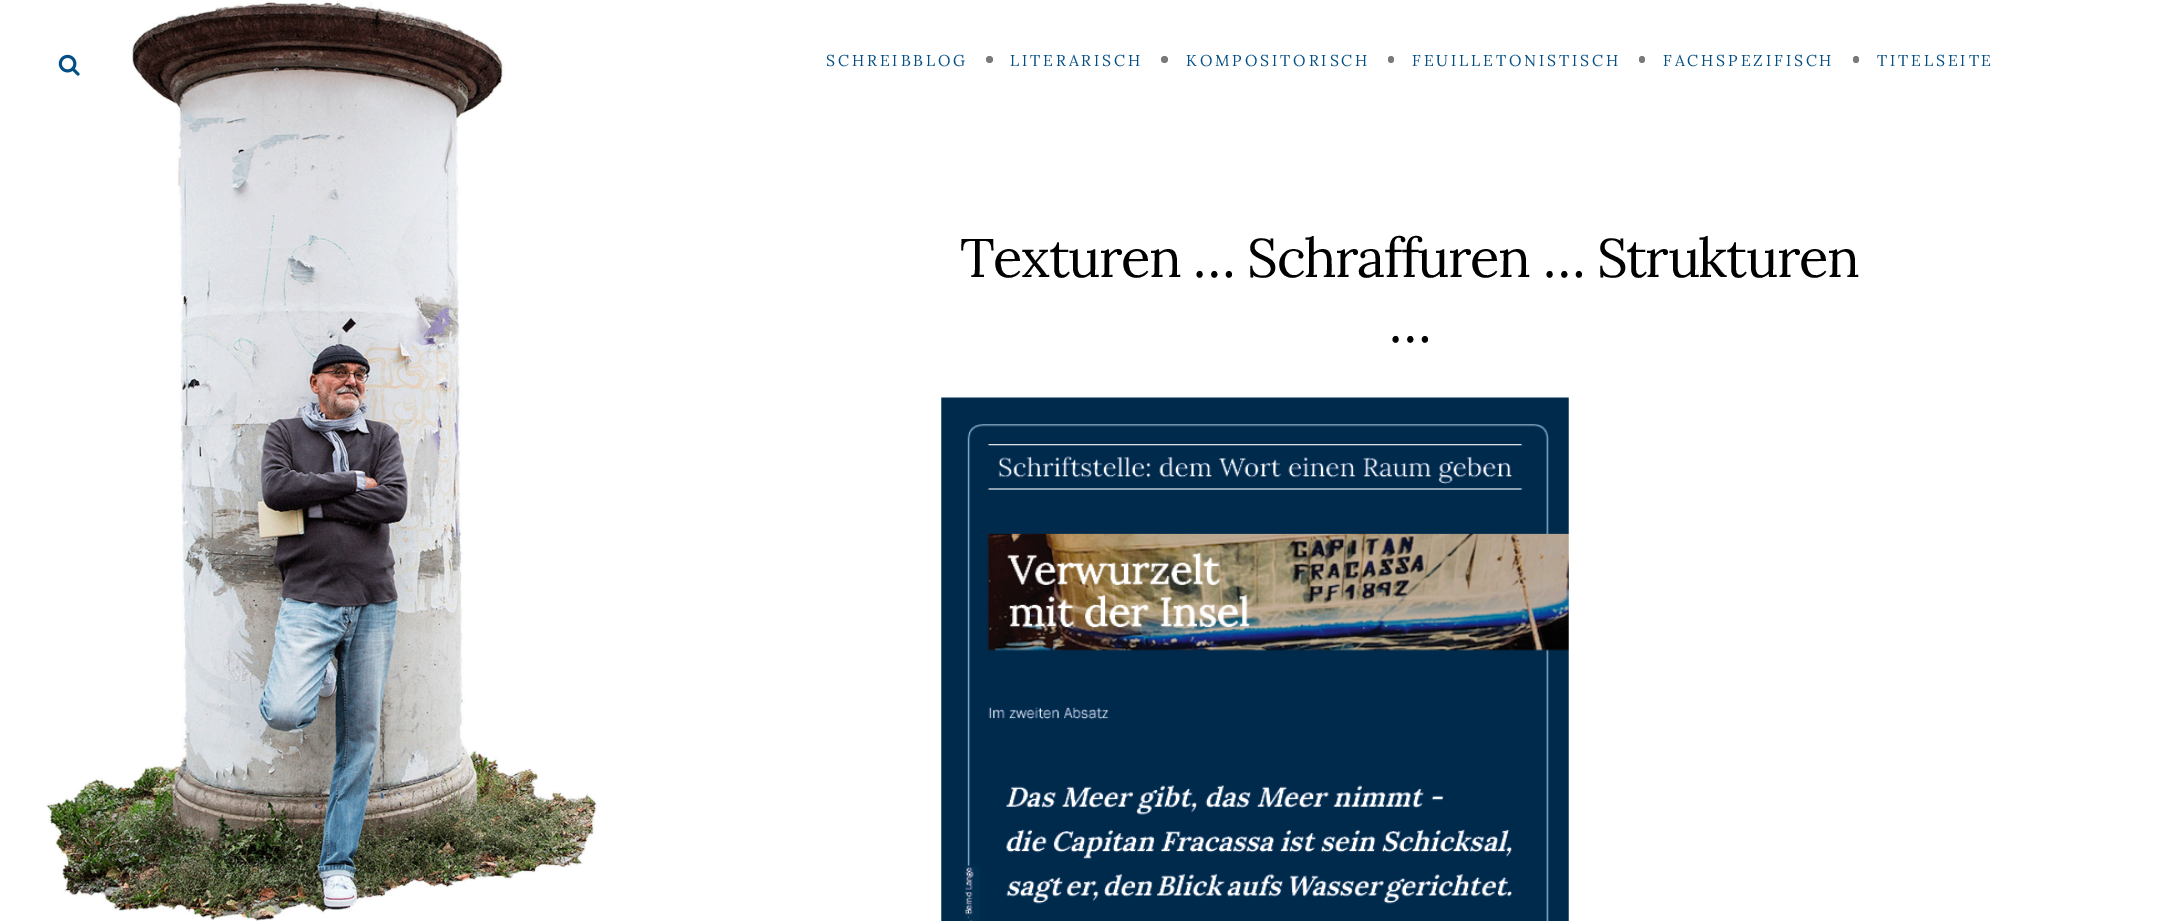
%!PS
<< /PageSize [2168 921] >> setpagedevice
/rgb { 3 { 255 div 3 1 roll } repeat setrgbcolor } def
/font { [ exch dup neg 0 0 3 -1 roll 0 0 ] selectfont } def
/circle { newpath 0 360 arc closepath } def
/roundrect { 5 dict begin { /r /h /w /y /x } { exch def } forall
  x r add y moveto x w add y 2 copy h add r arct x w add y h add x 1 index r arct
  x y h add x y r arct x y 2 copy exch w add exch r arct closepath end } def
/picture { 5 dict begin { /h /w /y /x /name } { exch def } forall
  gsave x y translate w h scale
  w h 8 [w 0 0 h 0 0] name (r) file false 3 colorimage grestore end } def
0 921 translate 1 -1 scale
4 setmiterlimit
255 255 255 rgb
0 0 2168 921 rectfill
(img_01.rgb) 45 0 553 921 picture
(img_02.rgb) 58 54 22 22 picture
122 122 122 rgb
989.5 59.5 3.5 circle fill
1164.5 59.5 3.5 circle fill
1388 56 6 7 3 roundrect fill
1639 56 6 7 3 roundrect fill
1853 56 6 7 3 roundrect fill
(img_03.rgb) 941 397 628 524 picture
/Lora-Regular 15.75 font
3 79 133 rgb
826 66 moveto 2.9 0 (SCHREIBBLOG) ashow
1010 66 moveto 2.9 0 (LITERARISCH) ashow
1186 66 moveto 2.9 0 (KOMPOSITORISCH) ashow
1412 66 moveto 2.9 0 (FEUILLETONISTISCH) ashow
1663 66 moveto 2.9 0 (FACHSPEZIFISCH) ashow
1877 66 moveto 2.9 0 (TITELSEITE) ashow
/Lora-Regular 54.25 font
0 0 0 rgb
960 277 moveto -1.45 0 (Texturen … Schraffuren … Strukturen) ashow
1389 342 moveto -1.45 0 (…) ashow
showpage
